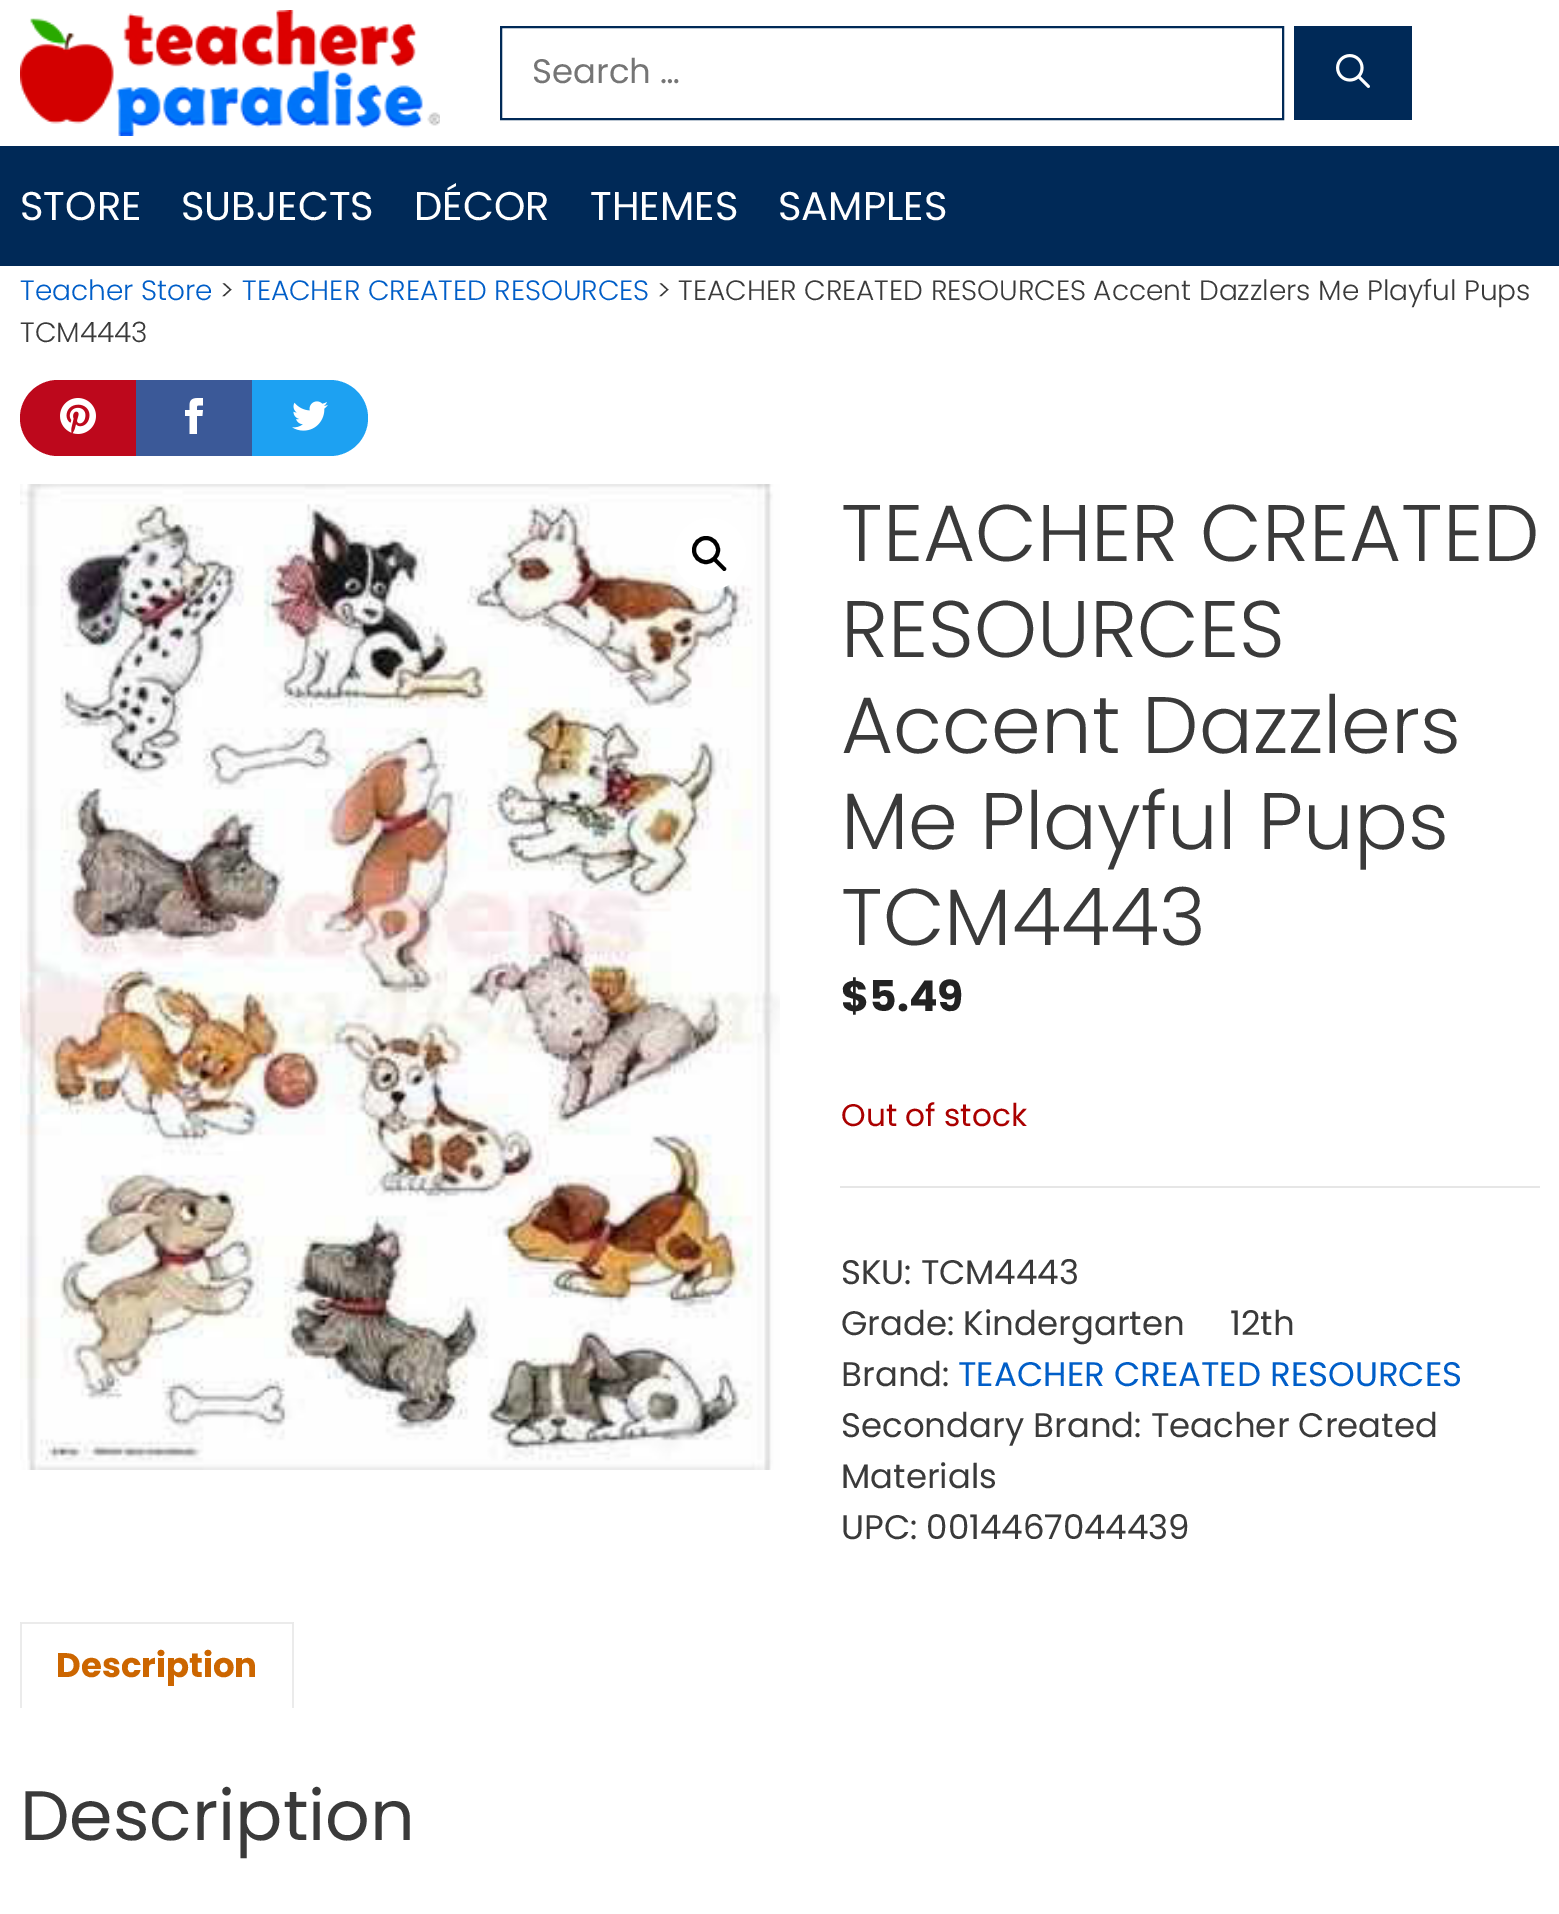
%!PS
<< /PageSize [1559 1914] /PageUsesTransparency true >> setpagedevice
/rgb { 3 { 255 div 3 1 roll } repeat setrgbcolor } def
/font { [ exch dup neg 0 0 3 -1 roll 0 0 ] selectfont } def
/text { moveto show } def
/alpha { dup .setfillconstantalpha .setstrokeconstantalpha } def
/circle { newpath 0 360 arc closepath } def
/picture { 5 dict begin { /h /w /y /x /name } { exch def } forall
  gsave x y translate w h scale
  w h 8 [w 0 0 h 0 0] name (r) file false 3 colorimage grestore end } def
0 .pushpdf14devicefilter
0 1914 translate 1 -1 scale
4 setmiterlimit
0 41 87 rgb
0 0 1559 1914 rectfill
255 255 255 rgb
0 0 1559 146 rectfill
(img_01.rgb) 20 10 420 126 picture
0 41 87 rgb
2 setlinewidth
501 27 782 92 rectstroke
1294 26 118 94 rectfill
(img_02.rgb) 1336 54 34 34 picture
255 255 255 rgb
0 266 1559 1648 rectfill
189 8 28 rgb
58 380 moveto 78 0 rlineto 0 76 rlineto -78 0 rlineto -21 0 -38 -17 -38 -38 rcurveto 0 -21 17 -38 38 -38 rcurveto closepath fill
(img_03.rgb) 60 398 36 36 picture
59 89 152 rgb
136 380 116 76 rectfill
(img_04.rgb) 185 398 18 36 picture
29 161 242 rgb
252 380 moveto 78 0 rlineto 21 0 38 17 38 38 rcurveto 0 21 -17 38 -38 38 rcurveto -78 0 rlineto closepath fill
(img_05.rgb) 292 401 36 30 picture
(img_06.rgb) 20 484 760 986 picture
255 255 255 rgb
710 554 36 circle fill
0 0 0 rgb
4 setlinewidth
706 550 12 circle stroke
714.5 559 moveto 0.5 -1 2 -1 2.5 0 rcurveto 8.5 8.5 rlineto 1 0.5 1 2 0 3 rcurveto -0.5 0.5 -2 0.5 -2.5 0 rcurveto -8.5 -8.5 rlineto -1 -1 -1 -2.5 0 -3 rcurveto closepath fill
230 230 230 rgb
840 1186 700 2 rectfill
235 235 235 rgb
20 1622 moveto 274 0 rlineto -2 2 rlineto -270 0 rlineto closepath fill
0.08 alpha
0 0 0 rgb
294 1622 moveto 0 86 rlineto -2 0 rlineto 0 -84 rlineto closepath fill
20 1708 moveto 0 -86 rlineto 2 2 rlineto 0 84 rlineto closepath fill
/Poppins-Regular 34 font
1 alpha
117 117 117 rgb
(Search …) 532 83 text
/Poppins-Regular 40 font
255 255 255 rgb
(STORE) 20 220 text
(SUBJECTS) 181 220 text
(DÉCOR) 414 220 text
(THEMES) 590 220 text
(SAMPLES) 778 220 text
/Poppins-Light 28 font
0 94 200 rgb
(Teacher Store) 20 300 text
58 58 58 rgb
(>) 220 300 text
0 94 200 rgb
(TEACHER CREATED RESOURCES) 242 300 text
58 58 58 rgb
(> TEACHER CREATED RESOURCES Accent Dazzlers Me Playful Pups) 657 300 text
(TCM4443) 20 342 text
/Poppins-Light 80 font
(TEACHER CREATED) 841 561 text
(RESOURCES) 841 657 text
(Accent Dazzlers) 841 753 text
(Me Playful Pups) 841 849 text
(TCM4443) 841 945 text
/Poppins-Bold 42.5 font
34 34 34 rgb
($5.49) 841 1011 text
/Poppins-Regular 31.25 font
170 0 0 rgb
(Out of stock) 841 1126 text
/Poppins-Regular 34 font
58 58 58 rgb
(SKU: TCM4443) 841 1284 text
(Grade: Kindergarten) 841 1335 text
(12th) 1230 1335 text
(Brand:) 841 1386 text
0 94 200 rgb
(TEACHER CREATED RESOURCES) 958 1386 text
58 58 58 rgb
(Secondary Brand: Teacher Created) 841 1437 text
(Materials) 841 1488 text
(UPC: 0014467044439) 841 1539 text
/Poppins-Bold 34 font
204 102 0 rgb
(Description) 56 1677 text
/Poppins-Regular 70 font
58 58 58 rgb
(Description) 20 1840 text
.poppdf14devicefilter showpage
